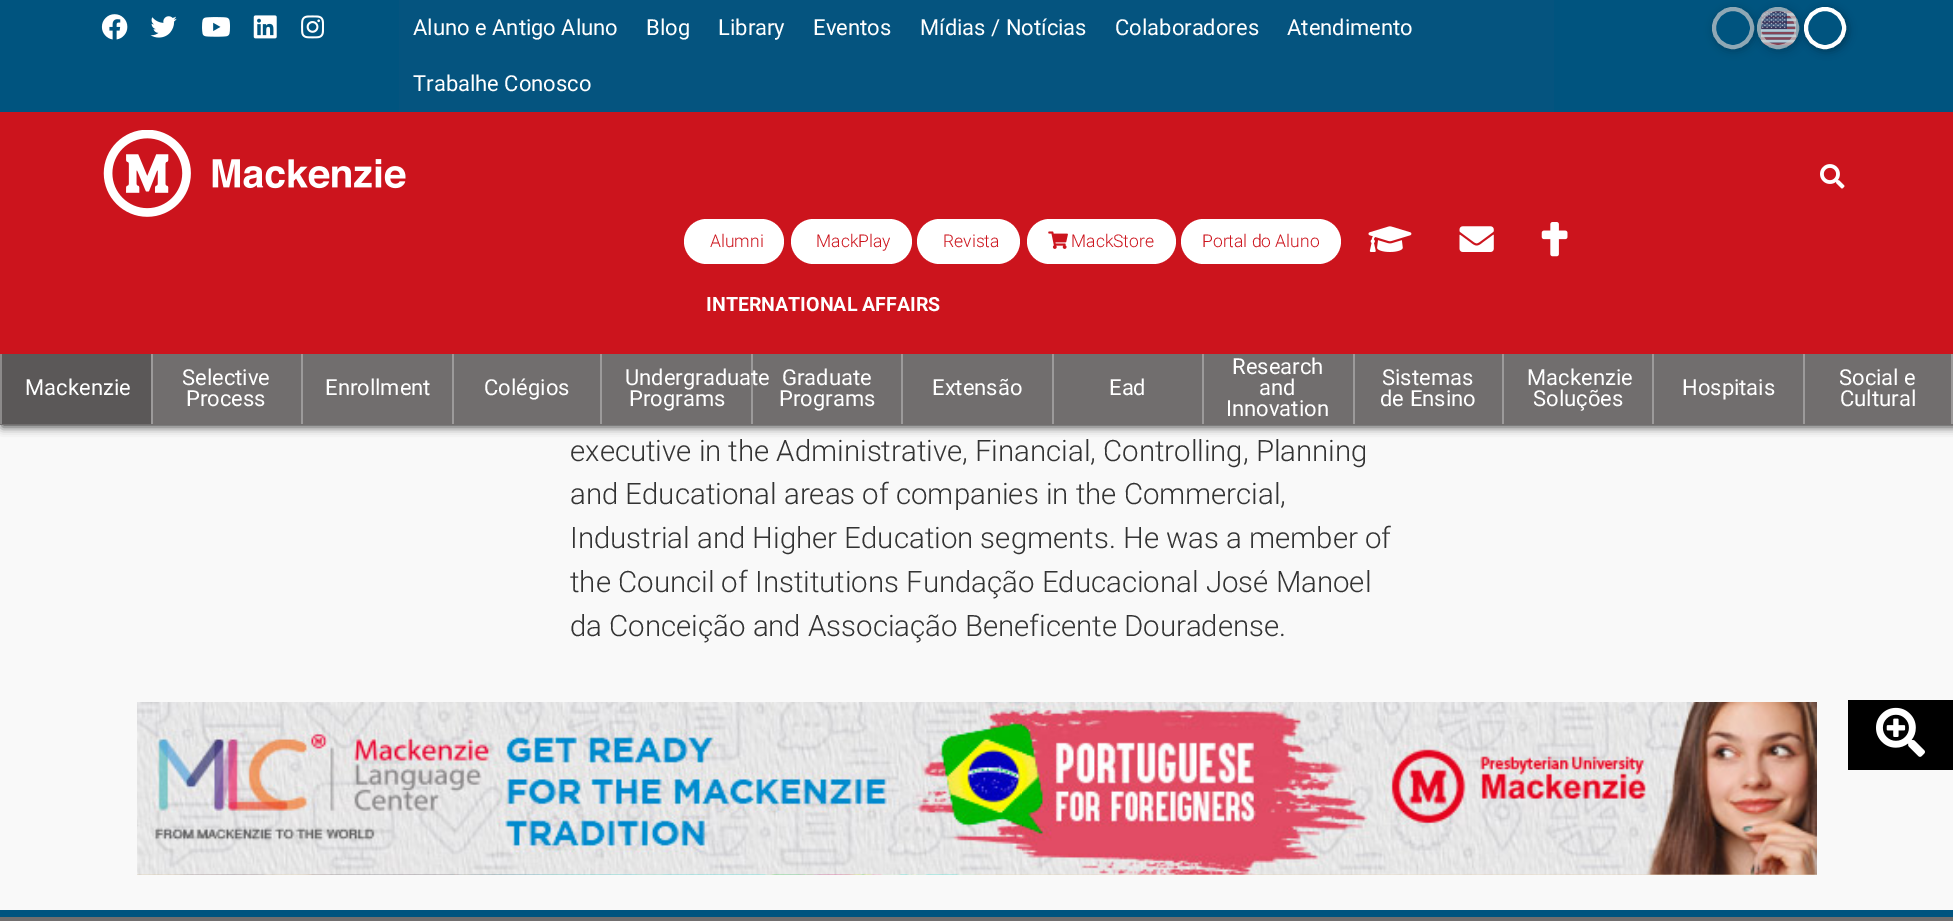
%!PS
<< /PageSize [1953 921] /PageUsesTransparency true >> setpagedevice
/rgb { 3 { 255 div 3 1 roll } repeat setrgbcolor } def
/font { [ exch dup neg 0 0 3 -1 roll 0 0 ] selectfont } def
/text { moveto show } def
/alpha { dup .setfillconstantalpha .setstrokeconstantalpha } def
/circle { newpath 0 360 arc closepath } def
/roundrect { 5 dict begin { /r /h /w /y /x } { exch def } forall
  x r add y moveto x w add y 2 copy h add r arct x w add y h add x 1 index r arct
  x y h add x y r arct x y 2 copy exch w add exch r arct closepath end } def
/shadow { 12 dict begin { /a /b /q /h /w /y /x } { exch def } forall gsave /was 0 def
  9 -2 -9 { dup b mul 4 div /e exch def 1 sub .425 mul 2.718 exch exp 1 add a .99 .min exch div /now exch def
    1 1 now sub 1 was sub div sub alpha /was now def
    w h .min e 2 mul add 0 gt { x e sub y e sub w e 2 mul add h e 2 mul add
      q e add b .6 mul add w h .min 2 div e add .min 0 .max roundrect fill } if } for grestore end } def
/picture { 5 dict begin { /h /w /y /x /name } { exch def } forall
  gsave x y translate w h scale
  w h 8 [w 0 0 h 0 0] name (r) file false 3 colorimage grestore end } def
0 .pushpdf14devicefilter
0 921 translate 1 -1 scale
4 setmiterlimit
249 249 249 rgb
0 0 1953 921 rectfill
68 68 68 rgb
2 2 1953 425 0 4.5 1 shadow
0 84 127 rgb
0 0 1953 112 rectfill
(img_01.rgb) 101 14 27 26 picture
(img_02.rgb) 150 16 27 22 picture
(img_03.rgb) 202 17 28 20 picture
(img_04.rgb) 253 15 24 24 picture
(img_05.rgb) 301 15 23 24 picture
5 84 127 rgb
399 0 1155 112 rectfill
gsave
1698 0 moveto 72 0 rlineto 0 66 rlineto -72 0 rlineto closepath 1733 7 moveto 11.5 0 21 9.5 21 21 rcurveto 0 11.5 -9.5 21 -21 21 rcurveto -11.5 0 -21 -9.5 -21 -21 rcurveto 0 -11.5 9.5 -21 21 -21 rcurveto closepath eoclip newpath
1 26 39 rgb
1713 9 42 42 21 4.5 0.3 shadow
grestore
143 168 181 rgb
4 setlinewidth
1733 28 19 circle stroke
gsave
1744 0 moveto 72 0 rlineto 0 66 rlineto -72 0 rlineto closepath 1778 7 moveto 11.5 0 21 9.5 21 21 rcurveto 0 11.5 -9.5 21 -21 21 rcurveto -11.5 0 -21 -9.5 -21 -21 rcurveto 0 -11.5 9.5 -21 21 -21 rcurveto closepath eoclip newpath
1 1 1 rgb
1759 9 42 42 21 4.5 0.21 shadow
grestore
(img_06.rgb) 1761 11 35 35 picture
0.7 alpha
204 204 204 rgb
1778 28 19 circle stroke
gsave
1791 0 moveto 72 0 rlineto 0 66 rlineto -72 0 rlineto closepath 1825 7 moveto 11.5 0 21 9.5 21 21 rcurveto 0 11.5 -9.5 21 -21 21 rcurveto -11.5 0 -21 -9.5 -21 -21 rcurveto 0 -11.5 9.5 -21 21 -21 rcurveto closepath eoclip newpath
1 alpha
1 1 1 rgb
1806 9 42 42 21 4.5 0.3 shadow
grestore
1 alpha
255 255 255 rgb
1825 28 19 circle stroke
204 20 29 rgb
0 112 1953 242 rectfill
(img_07.rgb) 103 130 303 87 picture
(img_08.rgb) 1820 164 25 25 picture
255 255 255 rgb
684 219 100 45 22.5 roundrect fill
791 219 121 45 22.5 roundrect fill
917 219 103 45 22.5 roundrect fill
1027 219 149 45 22.5 roundrect fill
(img_09.rgb) 1048 231 20 18 picture
1181 219 160 45 22.5 roundrect fill
(img_10.rgb) 1368 226 44 26 picture
(img_11.rgb) 1459 226 35 26 picture
(img_12.rgb) 1541 222 27 35 picture
113 110 110 rgb
0 354 1953 71 rectfill
91 88 88 rgb
2 354 149 70 rectfill
140 138 138 rgb
0 354 2 70 rectfill
156 154 154 rgb
151 354 2 70 rectfill
301 354 2 70 rectfill
452 354 2 70 rectfill
600 354 2 70 rectfill
901 354 2 70 rectfill
1052 354 2 70 rectfill
1202 354 2 70 rectfill
1353 354 2 70 rectfill
1502 354 2 70 rectfill
1652 354 2 70 rectfill
1951 354 2 70 rectfill
1803 354 2 70 rectfill
(img_14.rgb) 137 874 1680 1 picture
(img_13.rgb) 137 702 1680 173 picture
0 84 127 rgb
0 910 1953 7 rectfill
113 110 110 rgb
0 917 1953 4 rectfill
0 0 0 rgb
1848 700 105 70 rectfill
(img_15.rgb) 1876 707 49 50 picture
/Roboto-Regular 22 font
255 255 255 rgb
(Aluno e Antigo Aluno) 413 35 text
(Blog) 646 35 text
(Library) 718 35 text
(Eventos) 813 35 text
(Mídias / Notícias) 920 35 text
(Colaboradores) 1115 35 text
(Atendimento) 1287 35 text
(Trabalhe Conosco) 413 91 text
/Roboto-Light 17.5 font
204 20 29 rgb
(Alumni) 710 247 text
(MackPlay) 816 247 text
(Revista) 943 247 text
(MackStore) 1071 247 text
(Portal do Aluno) 1202 247 text
/Roboto-Bold 19.6 font
255 255 255 rgb
(INTERNATIONAL AFFAIRS) 706 311 text
/Roboto-Regular 22 font
(Mackenzie) 25 395 text
(Selective) 182 385 text
(Process) 186 406 text
(Enrollment) 325 395 text
(Colégios) 484 395 text
(Undergraduate) 625 385 text
(Programs) 629 406 text
0.3 alpha
751 354 2 70 rectfill
1 alpha
(Graduate) 782 385 text
(Programs) 779 406 text
(Extensão) 932 395 text
(Ead) 1109 395 text
(Research) 1232 374 text
(and) 1259 395 text
(Innovation) 1226 416 text
(Sistemas) 1382 385 text
(de Ensino) 1380 406 text
(Mackenzie) 1527 385 text
(Soluções) 1533 406 text
(Hospitais) 1682 395 text
(Social e) 1839 385 text
(Cultural) 1840 406 text
/Roboto-Light 29.4 font
51 51 51 rgb
(executive in the Administrative, Financial, Controlling, Planning) 570 461 text
(and Educational areas of companies in the Commercial,) 570 504 text
(Industrial and Higher Education segments. He was a member of) 570 548 text
(the Council of Institutions Fundação Educacional José Manoel) 570 592 text
(da Conceição and Associação Beneficente Douradense.) 570 636 text
.poppdf14devicefilter showpage
